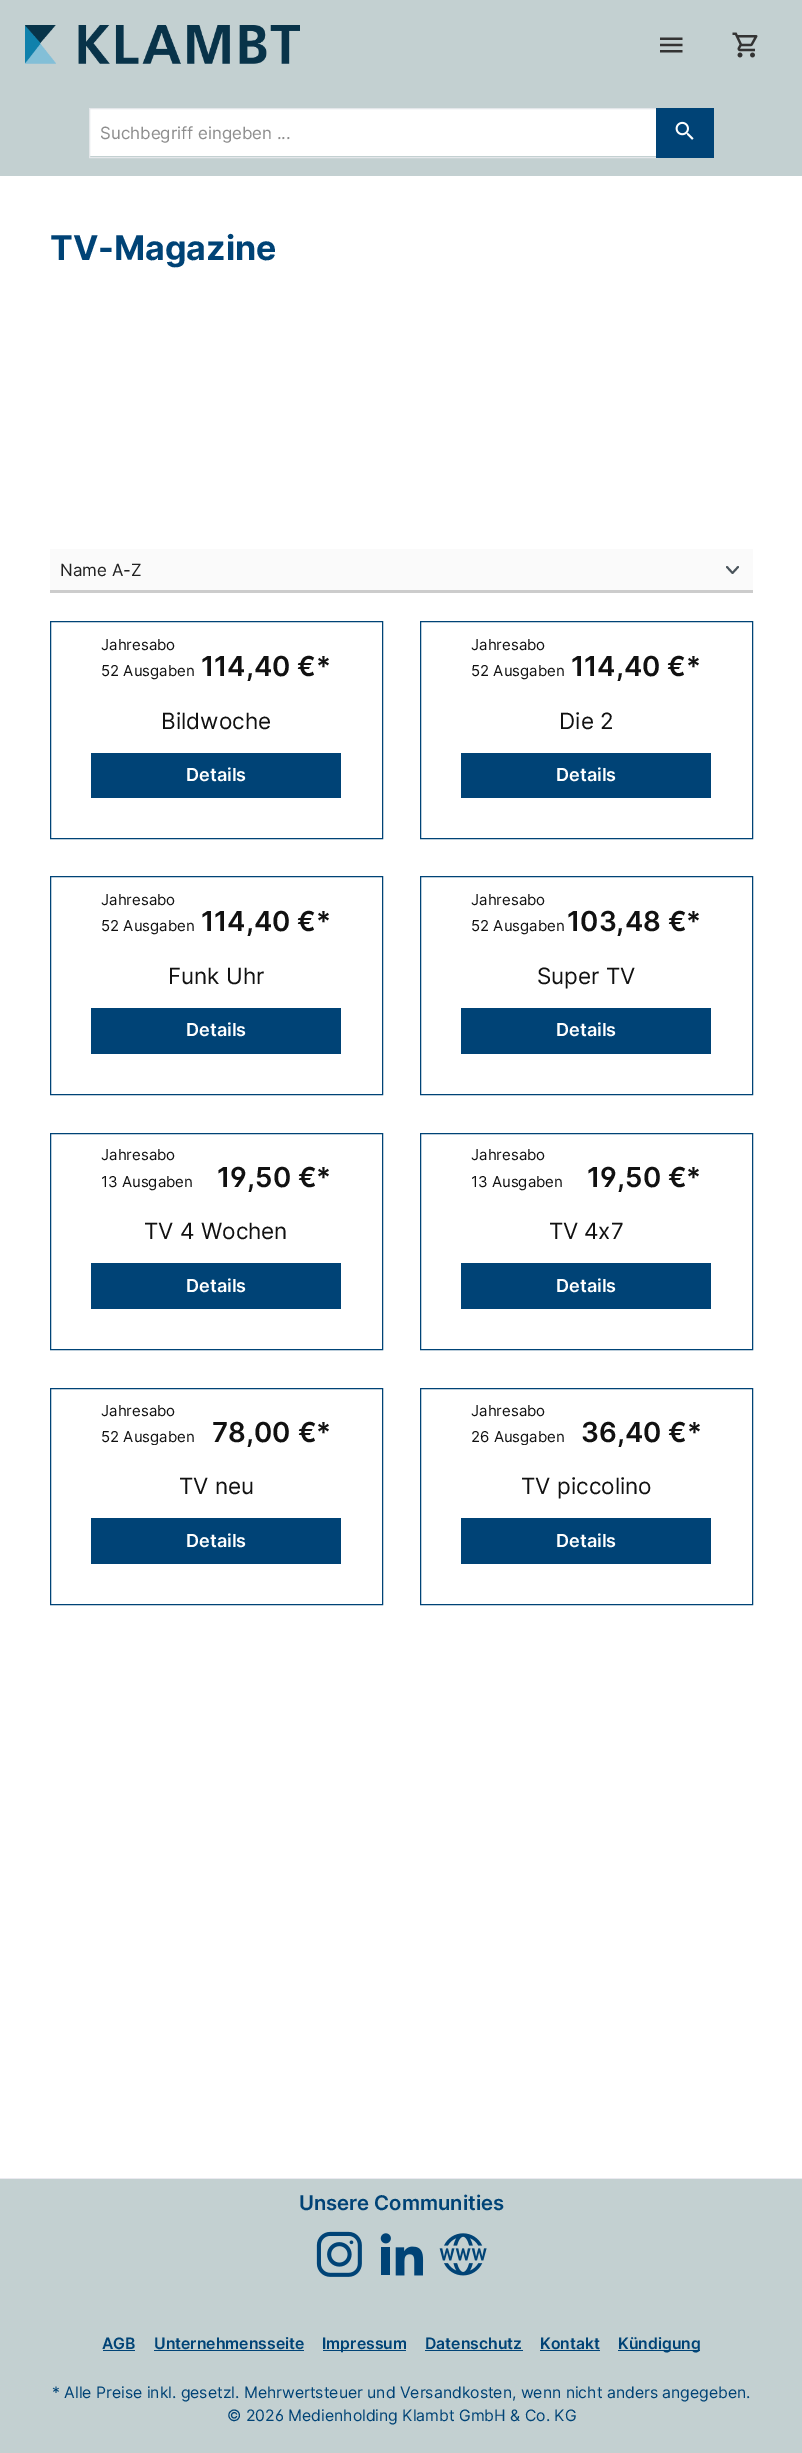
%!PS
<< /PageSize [802 2453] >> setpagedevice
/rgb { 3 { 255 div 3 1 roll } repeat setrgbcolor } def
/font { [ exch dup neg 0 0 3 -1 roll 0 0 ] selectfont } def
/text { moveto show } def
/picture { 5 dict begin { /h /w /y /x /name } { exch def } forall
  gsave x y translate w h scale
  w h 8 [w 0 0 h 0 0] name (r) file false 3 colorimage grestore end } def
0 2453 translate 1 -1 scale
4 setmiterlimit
255 255 255 rgb
0 0 802 2453 rectfill
195 208 209 rgb
0 0 802 176 rectfill
(img_01.rgb) 25 25 275 39 picture
(img_02.rgb) 660 37 23 16 picture
(img_03.rgb) 732 32 26 26 picture
255 255 255 rgb
90 109 566 47 rectfill
228 231 234 rgb
89.5 108.5 568 49 rectstroke
0 67 118 rgb
656 108 58 50 rectfill
(img_04.rgb) 675 121 19 19 picture
250 250 250 rgb
50 549 703 41 rectfill
74 84 91 rgb
1.9 setlinewidth
1 setlinecap
1 setlinejoin
727 567 moveto 5.5 6 rlineto 5.5 -6 rlineto stroke
204 204 204 rgb
50 590 703 3 rectfill
0 67 118 rgb
1 setlinewidth
0 setlinecap
0 setlinejoin
50.5 621.5 332 217 rectstroke
91 753 250 45 rectfill
420.5 621.5 332 217 rectstroke
461 753 250 45 rectfill
50.5 876.5 332 218 rectstroke
91 1008 250 46 rectfill
420.5 876.5 332 218 rectstroke
461 1008 250 46 rectfill
50.5 1133.5 332 216 rectstroke
91 1263 250 46 rectfill
420.5 1133.5 332 216 rectstroke
461 1263 250 46 rectfill
50.5 1388.5 332 216 rectstroke
91 1518 250 46 rectfill
420.5 1388.5 332 216 rectstroke
461 1518 250 46 rectfill
195 208 209 rgb
0 2179 802 274 rectfill
234 234 240 rgb
0 2178 802 1 rectfill
(img_05.rgb) 316 2231 46 46 picture
(img_06.rgb) 380 2233 44 43 picture
(img_07.rgb) 439 2233 48 43 picture
0 67 118 rgb
103 2350 32 1 rectfill
154 2350 150 1 rectfill
323 2350 83 1 rectfill
425 2350 98 1 rectfill
540 2350 60 1 rectfill
618 2350 82 1 rectfill
/Inter-Regular 16.9 font
142 142 142 rgb
(Suchbegriff eingeben ...) 100 139 text
/Inter-Bold 34 font
0 67 118 rgb
(TV-Magazine) 50 260 text
/Inter-Regular 16.9 font
34 34 34 rgb
(Name A-Z) 60 576 text
/Inter-Regular 15 font
17 17 17 rgb
(Jahresabo) 101 650 text
(52 Ausgaben) 101 676 text
/Inter-SemiBold 27.5 font
(114,40 €*) 201 676 text
/Inter-Regular 22.5 font
(Bildwoche) 161 729 text
/Inter-SemiBold 18 font
255 255 255 rgb
(Details) 186 781 text
/Inter-Regular 15 font
17 17 17 rgb
(Jahresabo) 471 650 text
(52 Ausgaben) 471 676 text
/Inter-SemiBold 27.5 font
(114,40 €*) 571 676 text
/Inter-Regular 22.5 font
(Die 2) 559 729 text
/Inter-SemiBold 18 font
255 255 255 rgb
(Details) 556 781 text
/Inter-Regular 15 font
17 17 17 rgb
(Jahresabo) 101 905 text
(52 Ausgaben) 101 931 text
/Inter-SemiBold 27.5 font
(114,40 €*) 201 931 text
/Inter-Regular 22.5 font
(Funk Uhr) 168 984 text
/Inter-SemiBold 18 font
255 255 255 rgb
(Details) 186 1036 text
/Inter-Regular 15 font
17 17 17 rgb
(Jahresabo) 471 905 text
(52 Ausgaben) 471 931 text
/Inter-SemiBold 27.5 font
(103,48 €*) 567 931 text
/Inter-Regular 22.5 font
(Super TV) 537 984 text
/Inter-SemiBold 18 font
255 255 255 rgb
(Details) 556 1036 text
/Inter-Regular 15 font
17 17 17 rgb
(Jahresabo) 101 1160 text
(13 Ausgaben) 101 1187 text
/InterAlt-SemiBold 27.5 font
(19,50 €*) 217 1187 text
/Inter-Regular 22.5 font
(TV 4 Wochen) 144 1239 text
/Inter-SemiBold 18 font
255 255 255 rgb
(Details) 186 1292 text
/Inter-Regular 15 font
17 17 17 rgb
(Jahresabo) 471 1160 text
(13 Ausgaben) 471 1187 text
/InterAlt-SemiBold 27.5 font
(19,50 €*) 587 1187 text
/Inter-Regular 22.5 font
549 1239 moveto -1 0 32 (TV 4x7) widthshow
/Inter-SemiBold 18 font
255 255 255 rgb
(Details) 556 1292 text
/Inter-Regular 15 font
17 17 17 rgb
(Jahresabo) 101 1416 text
gsave
101 1428 94 17 rectclip
(52 Ausgaben) 101 1442 text
grestore
/Inter-SemiBold 27.5 font
(78,00 €*) 212 1442 text
/Inter-Regular 22.5 font
(TV neu) 179 1494 text
/Inter-SemiBold 18 font
255 255 255 rgb
(Details) 186 1547 text
/Inter-Regular 15 font
17 17 17 rgb
(Jahresabo) 471 1416 text
gsave
471 1428 93 17 rectclip
(26 Ausgaben) 471 1442 text
grestore
/Inter-SemiBold 27.5 font
(36,40 €*) 581 1442 text
/Inter-Regular 22.5 font
(TV piccolino) 521 1494 text
/Inter-SemiBold 18 font
255 255 255 rgb
(Details) 556 1547 text
/Inter-SemiBold 20.25 font
0 67 118 rgb
(Unsere Communities) 299 2210 text
/Inter-SemiBold 15.75 font
(AGB) 102 2349 text
(Unternehmensseite) 154 2349 text
(Impressum) 322 2349 text
(Datenschutz) 425 2349 text
(Kontakt) 540 2349 text
(Kündigung) 618 2349 text
/Inter-Regular 15.75 font
(* Alle Preise inkl. gesetzl. Mehrwertsteuer und Versandkosten, wenn nicht anders angegeben.) 52 2398 text
/InterAlt-Regular 15.75 font
(© 2026 Medienholding Klambt GmbH & Co. KG) 227 2421 text
showpage
